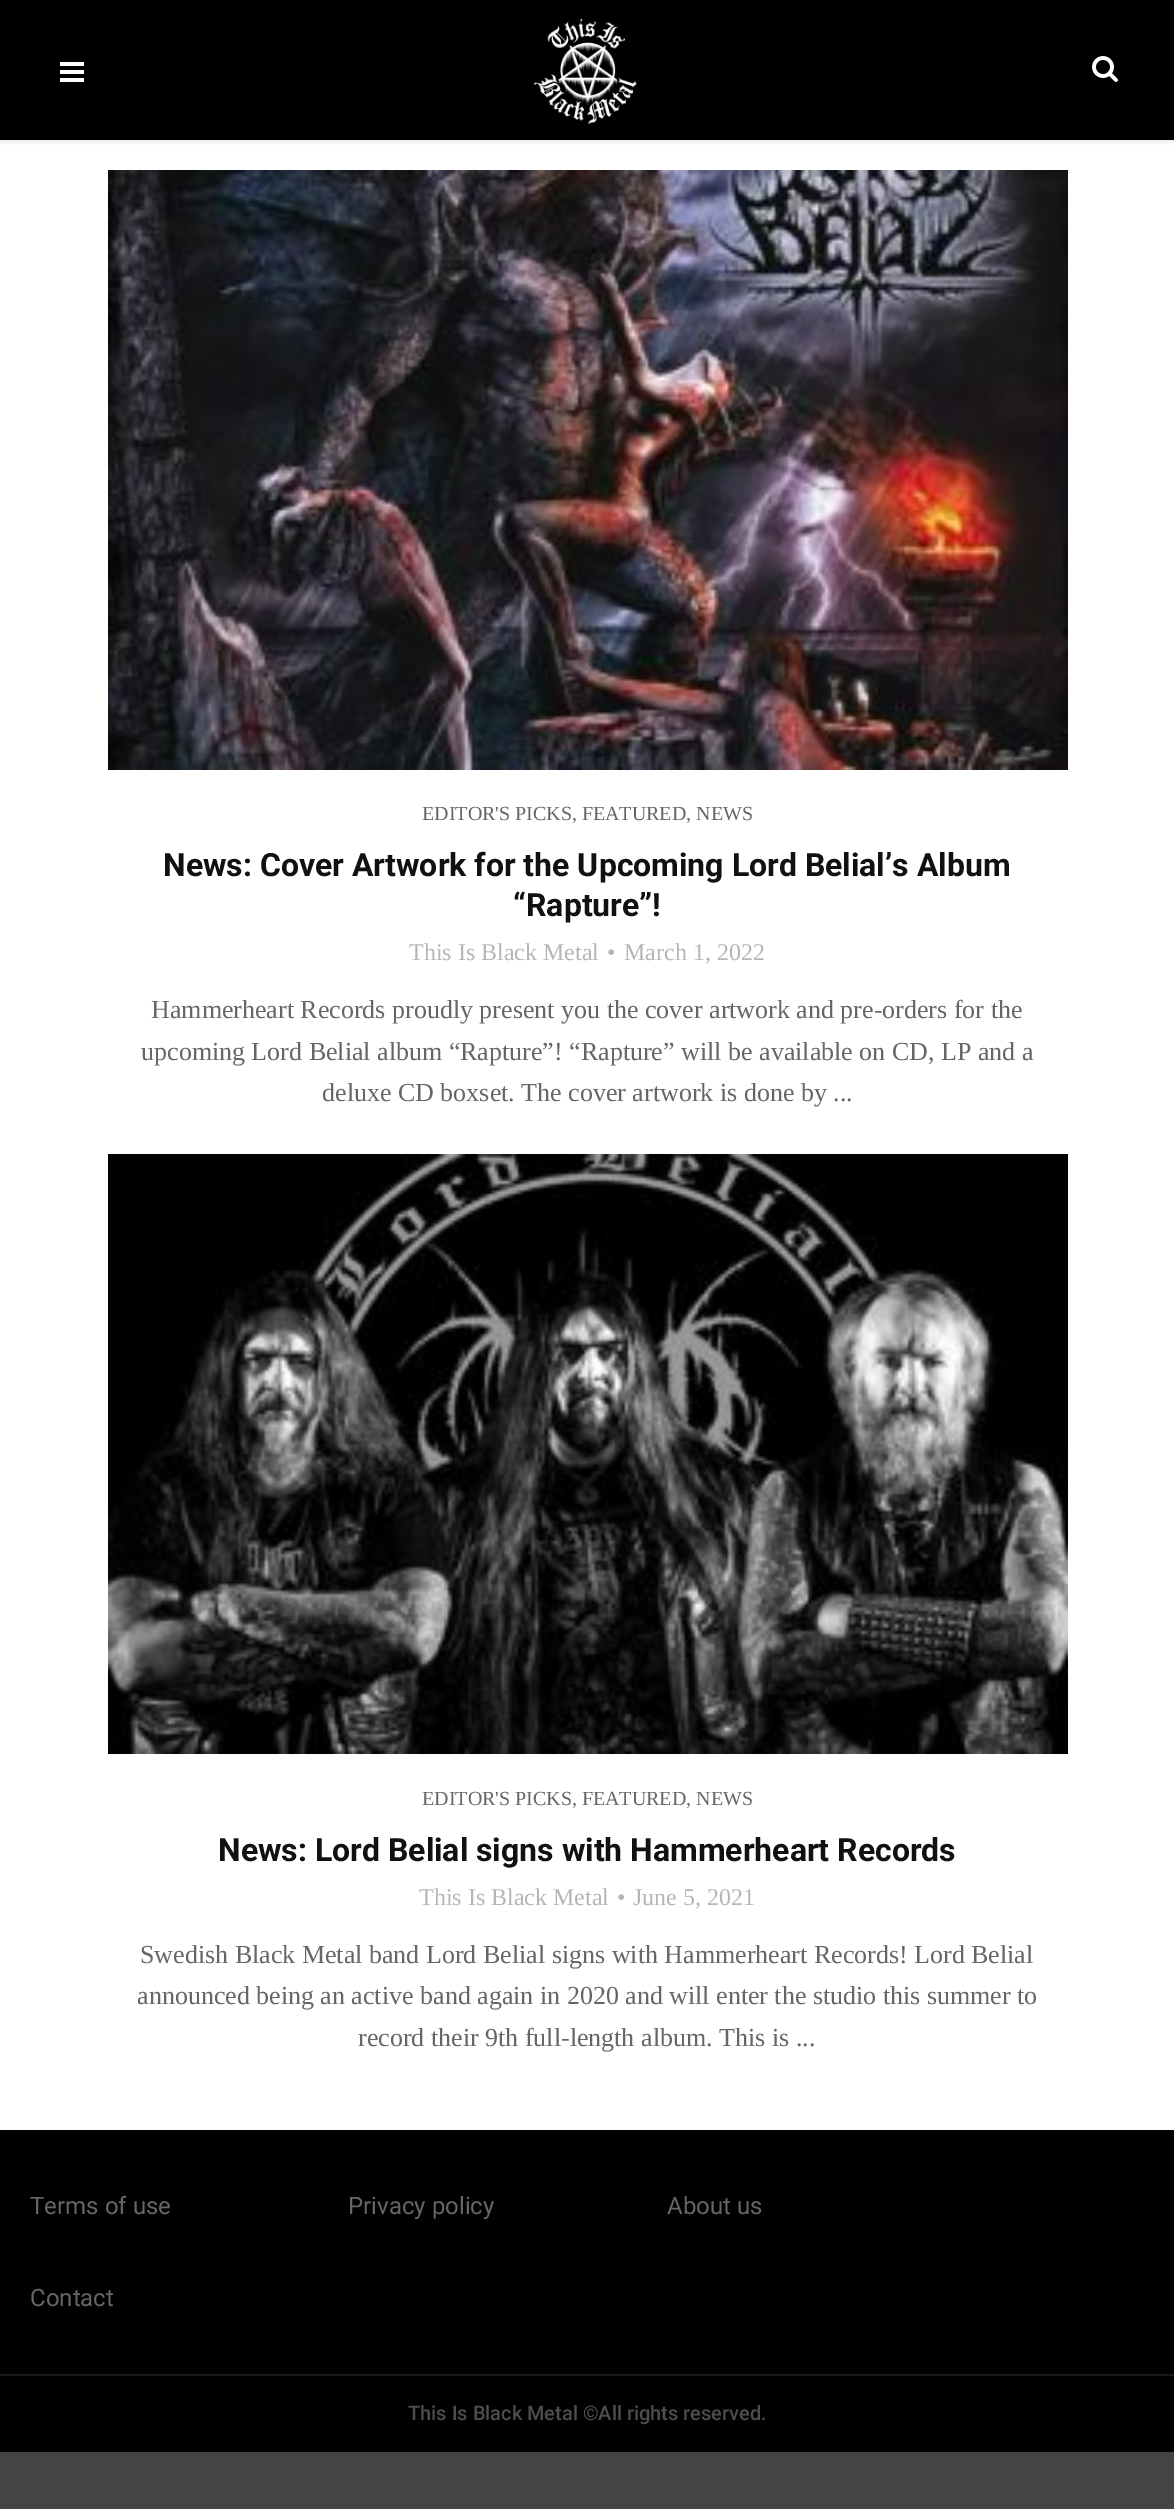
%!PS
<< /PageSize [1174 2509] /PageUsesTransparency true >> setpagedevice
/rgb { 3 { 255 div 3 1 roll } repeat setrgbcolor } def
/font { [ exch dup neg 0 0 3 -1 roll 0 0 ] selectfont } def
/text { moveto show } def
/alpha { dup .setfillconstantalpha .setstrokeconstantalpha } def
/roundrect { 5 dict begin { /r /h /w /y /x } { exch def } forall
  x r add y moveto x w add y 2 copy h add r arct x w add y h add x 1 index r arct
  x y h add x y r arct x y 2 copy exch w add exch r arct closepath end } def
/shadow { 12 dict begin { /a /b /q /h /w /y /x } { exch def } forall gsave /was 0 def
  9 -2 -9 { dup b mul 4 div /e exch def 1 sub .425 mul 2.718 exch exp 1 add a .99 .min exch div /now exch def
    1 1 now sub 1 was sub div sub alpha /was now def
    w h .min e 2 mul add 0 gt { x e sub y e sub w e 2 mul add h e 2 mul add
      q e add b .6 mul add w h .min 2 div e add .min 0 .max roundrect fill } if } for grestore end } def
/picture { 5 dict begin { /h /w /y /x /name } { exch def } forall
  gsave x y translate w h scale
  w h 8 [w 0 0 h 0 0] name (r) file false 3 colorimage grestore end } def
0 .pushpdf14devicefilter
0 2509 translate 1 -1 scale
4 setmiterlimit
68 68 68 rgb
0 0 1174 2509 rectfill
255 255 255 rgb
0 140 1174 1990 rectfill
234 234 234 rgb
0 2 1174 140 0 2 1 shadow
0 0 0 rgb
0 0 1174 140 rectfill
255 255 255 rgb
60 62 24 4 rectfill
60 70 24 4 rectfill
60 78 24 4 rectfill
(img_01.rgb) 534 19 103 106 picture
(img_02.rgb) 1092 56 26 26 picture
(img_03.rgb) 108 170 960 600 picture
(img_04.rgb) 108 1154 960 600 picture
0 0 0 rgb
0 2130 1174 322 rectfill
26 26 26 rgb
0 2374 1174 2 rectfill
/LiberationSerif-Regular 20 font
102 102 102 rgb
(EDITOR'S PICKS, FEATURED, NEWS) 422 820 text
/Roboto-Bold 32 font
17 17 17 rgb
(News: Cover Artwork for the Upcoming Lord Belial’s Album) 163 876 text
(“Rapture”!) 513 916 text
/LiberationSerif-Regular 24 font
181 181 181 rgb
(This Is Black Metal) 409 960 text
(•) 607 960 text
(March 1, 2022) 624 960 text
/LiberationSerif-Regular 26 font
102 102 102 rgb
(Hammerheart Records proudly present you the cover artwork and pre-orders for the) 151 1018 text
(upcoming Lord Belial album “Rapture”! “Rapture” will be available on CD, LP and a) 141 1060 text
(deluxe CD boxset. The cover artwork is done by ...) 322 1101 text
/LiberationSerif-Regular 20 font
(EDITOR'S PICKS, FEATURED, NEWS) 422 1805 text
/Roboto-Bold 32 font
17 17 17 rgb
(News: Lord Belial signs with Hammerheart Records) 218 1861 text
/LiberationSerif-Regular 24 font
181 181 181 rgb
(This Is Black Metal) 419 1905 text
(•) 617 1905 text
(June 5, 2021) 633 1905 text
/LiberationSerif-Regular 26 font
102 102 102 rgb
(Swedish Black Metal band Lord Belial signs with Hammerheart Records! Lord Belial) 140 1963 text
(announced being an active band again in 2020 and will enter the studio this summer to) 137 2004 text
(record their 9th full-length album. This is ...) 358 2046 text
/Roboto-Regular 24 font
(Terms of use) 30 2214 text
(Privacy policy) 348 2214 text
(About us) 667 2214 text
(Contact) 30 2306 text
/Roboto-Medium 20 font
77 77 77 rgb
(This Is Black Metal ©All rights reserved.) 408 2420 text
.poppdf14devicefilter showpage
